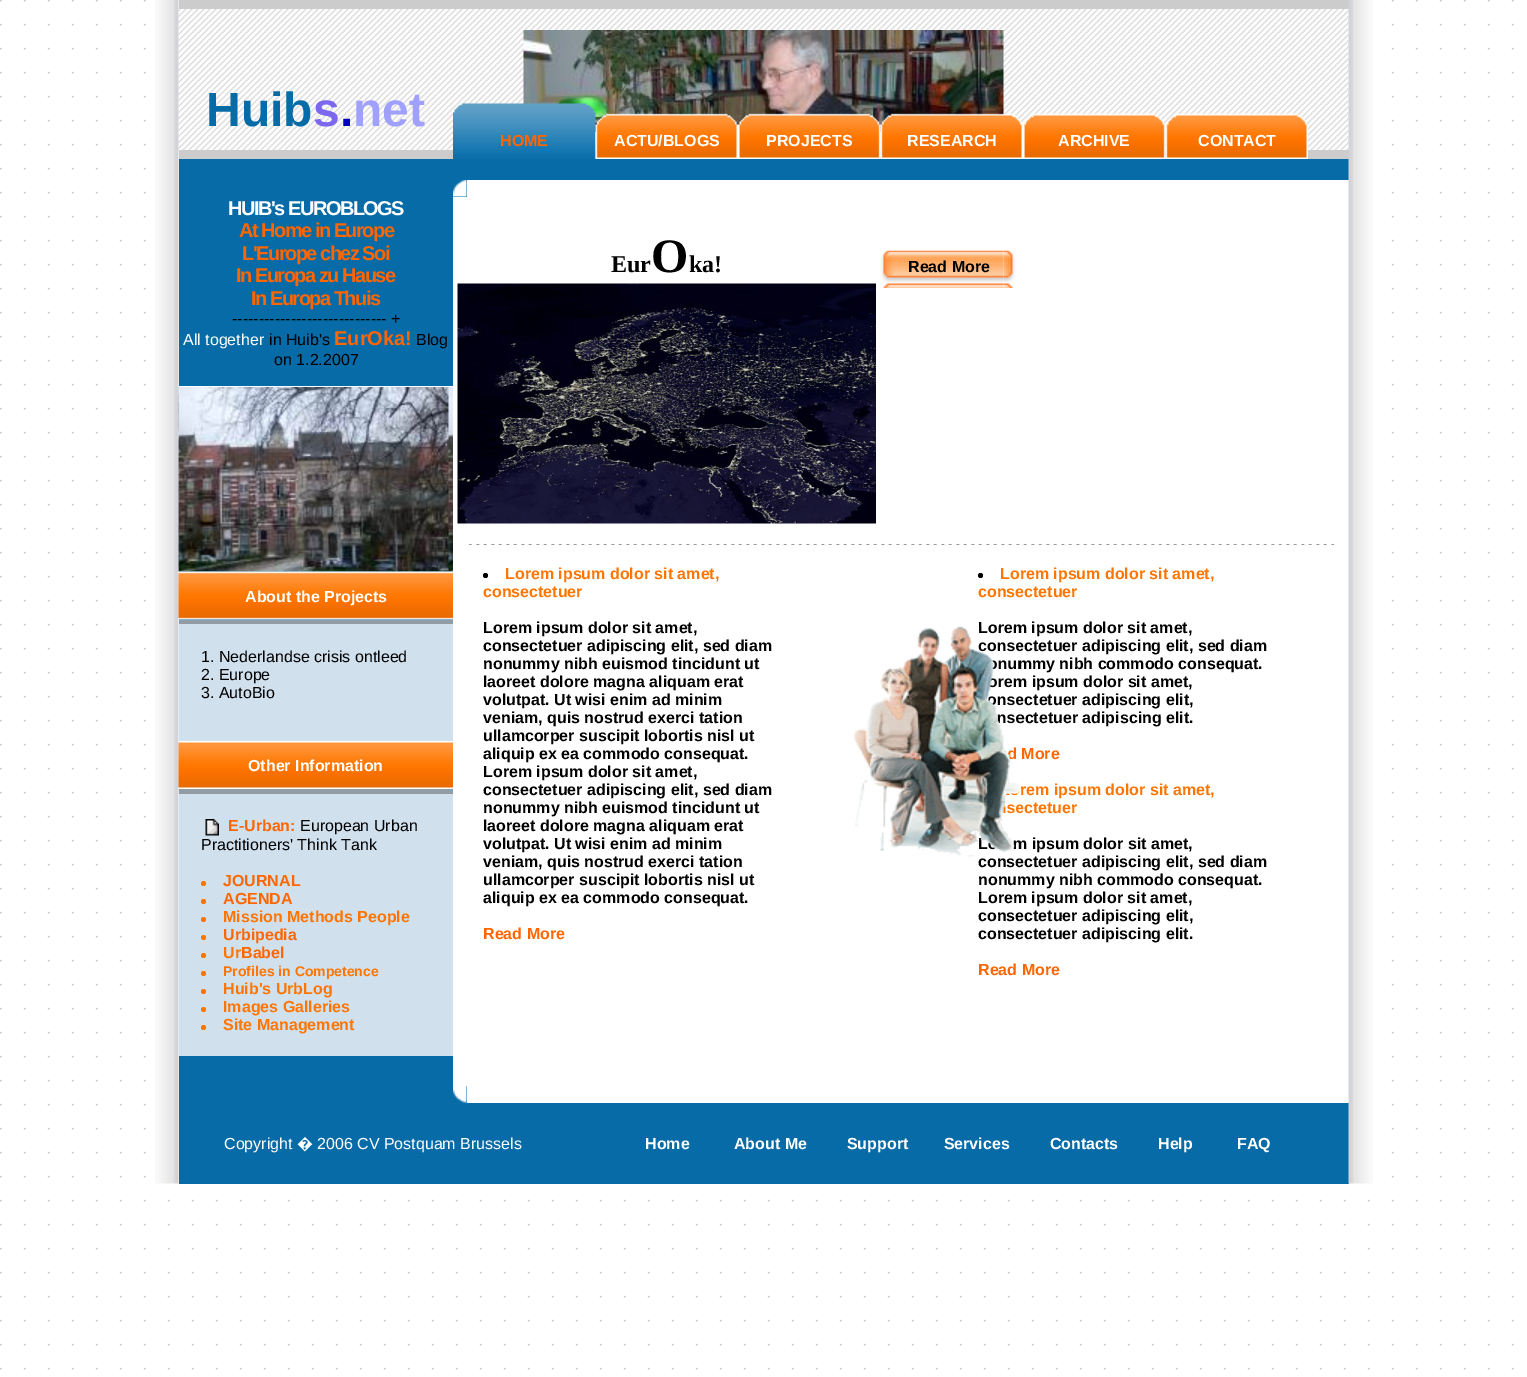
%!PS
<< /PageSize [1527 1377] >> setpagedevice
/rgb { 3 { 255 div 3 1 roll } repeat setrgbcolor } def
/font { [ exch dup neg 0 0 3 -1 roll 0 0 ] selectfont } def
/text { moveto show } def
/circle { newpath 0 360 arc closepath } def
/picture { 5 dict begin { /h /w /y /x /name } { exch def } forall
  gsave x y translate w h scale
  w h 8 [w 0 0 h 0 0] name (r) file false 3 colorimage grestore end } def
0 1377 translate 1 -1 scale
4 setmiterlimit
255 255 255 rgb
0 0 1527 1377 rectfill
(img_01.rgb) 0 0 1514 1370 picture
204 204 204 rgb
179 0 1170 159 rectfill
255 255 255 rgb
179 9 1170 141 rectfill
(img_08.rgb) 155 0 24 1184 picture
(img_09.rgb) 178 9 1171 141 picture
(img_10.rgb) 523 30 481 102 picture
(img_02.rgb) 453 103 143 56 picture
(img_03.rgb) 595 113 143 46 picture
(img_04.rgb) 738 113 143 46 picture
(img_05.rgb) 880 113 143 46 picture
(img_06.rgb) 1023 113 143 46 picture
(img_07.rgb) 1165 113 143 46 picture
7 107 167 rgb
179 159 1170 1025 rectfill
(img_11.rgb) 453 180 14 17 picture
255 255 255 rgb
467 180 882 17 rectfill
179 386 274 1 rectfill
(img_12.rgb) 178 387 275 185 picture
(img_13.rgb) 178 571 275 49 picture
146 156 165 rgb
179 620 274 4 rectfill
208 224 237 rgb
179 624 274 117 rectfill
(img_14.rgb) 178 741 275 48 picture
146 156 165 rgb
179 789 274 5 rectfill
208 224 237 rgb
179 794 274 262 rectfill
(img_15.rgb) 205 819 14 17 picture
255 117 0 rgb
203.5 883.5 2.5 circle fill
203.5 901.5 2.5 circle fill
203.5 919.5 2.5 circle fill
203.5 937.5 2.5 circle fill
203.5 955.5 2.5 circle fill
203.5 973.5 2.5 circle fill
203.5 991.5 2.5 circle fill
203.5 1009.5 2.5 circle fill
203.5 1027.5 2.5 circle fill
255 255 255 rgb
453 197 896 889 rectfill
(img_16.rgb) 457 283 419 241 picture
(img_17.rgb) 880 250 14 38 picture
(img_18.rgb) 894 250 110 38 picture
(img_19.rgb) 1003 250 12 38 picture
(img_20.rgb) 469 544 865 1 picture
0 0 0 rgb
485.5 575.5 2.5 circle fill
980.5 575.5 2.5 circle fill
(img_21.rgb) 453 1086 14 17 picture
255 255 255 rgb
467 1086 882 17 rectfill
(img_22.rgb) 1348 0 25 1184 picture
/LiberationSans-Bold 48 font
7 107 167 rgb
(Huib) 206 126 text
123 104 238 rgb
(s) 313 126 text
0 0 192 rgb
(.) 340 126 text
160 160 255 rgb
(net) 353 126 text
/LiberationSans-Bold 16 font
255 102 0 rgb
(HOME) 500 146 text
255 255 255 rgb
(ACTU/BLOGS) 614 146 text
(PROJECTS) 766 146 text
(RESEARCH) 907 146 text
(ARCHIVE) 1058 146 text
(CONTACT) 1198 146 text
/LiberationSans-Bold 20 font
228 215 moveto -1.5 0 (HUIB's EUROBLOGS) ashow
255 102 0 rgb
239 237 moveto -1.5 0 (At Home in Europe) ashow
242 260 moveto -1.5 0 (L'Europe chez Soi) ashow
236 282 moveto -1.5 0 (In Europa zu Hause) ashow
251 305 moveto -1.5 0 (In Europa Thuis) ashow
/LiberationSans-Regular 16 font
0 0 0 rgb
(----------------------------- +) 232 324 text
255 255 255 rgb
(All together) 183 345 text
0 0 0 rgb
(in Huib's) 269 345 text
/LiberationSans-Bold 20 font
255 102 0 rgb
(EurOka!) 334 345 text
/LiberationSans-Regular 16 font
0 0 0 rgb
(Blog) 416 345 text
(on 1.2.2007) 274 365 text
/LiberationSans-Bold 16 font
255 255 255 rgb
(About the Projects) 245 602 text
/LiberationSans-Regular 16 font
0 0 0 rgb
(1. Nederlandse crisis ontleed) 201 662 text
(2. Europe) 201 680 text
(3. AutoBio) 201 698 text
/LiberationSans-Bold 16 font
255 255 255 rgb
(Other Information) 248 771 text
255 102 0 rgb
(E-Urban:) 228 831 text
/LiberationSans-Regular 16 font
0 0 0 rgb
(European Urban) 300 831 text
(Practitioners' Think Tank) 201 850 text
/LiberationSans-Bold 16 font
255 102 0 rgb
(JOURNAL) 223 886 text
(AGENDA) 223 904 text
255 117 0 rgb
(Mission Methods People) 223 922 text
255 102 0 rgb
(Urbipedia) 223 940 text
255 117 0 rgb
(Ur) 223 958 text
255 102 0 rgb
(Babel) 241 958 text
/LiberationSans-Bold 14 font
255 117 0 rgb
(Profiles in Competence) 223 976 text
/LiberationSans-Bold 16 font
(Huib's UrbLog) 223 994 text
(Images Galleries) 223 1012 text
(Site Management) 223 1030 text
/LiberationSerif-Bold 24 font
0 0 0 rgb
(Eur) 611 272 text
/LiberationSerif-Bold 48 font
(O) 651 272 text
/LiberationSerif-Bold 24 font
(ka!) 689 272 text
/LiberationSans-Bold 16 font
(Read More) 908 272 text
255 117 0 rgb
(Lorem ipsum dolor sit amet,) 505 579 text
(consectetuer) 483 597 text
0 0 0 rgb
(Lorem ipsum dolor sit amet,) 483 633 text
(consectetuer adipiscing elit, sed diam) 483 651 text
(nonummy nibh euismod tincidunt ut) 483 669 text
(laoreet dolore magna aliquam erat) 483 687 text
(volutpat. Ut wisi enim ad minim) 483 705 text
(veniam, quis nostrud exerci tation) 483 723 text
(ullamcorper suscipit lobortis nisl ut) 483 741 text
(aliquip ex ea commodo consequat.) 483 759 text
(Lorem ipsum dolor sit amet,) 483 777 text
(consectetuer adipiscing elit, sed diam) 483 795 text
(nonummy nibh euismod tincidunt ut) 483 813 text
(laoreet dolore magna aliquam erat) 483 831 text
(volutpat. Ut wisi enim ad minim) 483 849 text
(veniam, quis nostrud exerci tation) 483 867 text
(ullamcorper suscipit lobortis nisl ut) 483 885 text
(aliquip ex ea commodo consequat.) 483 903 text
255 102 0 rgb
(Read More) 483 939 text
255 117 0 rgb
(Lorem ipsum dolor sit amet,) 1000 579 text
(consectetuer) 978 597 text
0 0 0 rgb
(Lorem ipsum dolor sit amet,) 978 633 text
(consectetuer adipiscing elit, sed diam) 978 651 text
(nummy nibh commodo consequat.) 998 669 text
(orem ipsum dolor sit amet,) 988 687 text
(onsectetuer adipiscing elit,) 987 705 text
(nsectetuer adipiscing elit.) 997 723 text
255 102 0 rgb
(d More) 1007 759 text
255 117 0 rgb
(rem ipsum dolor sit amet,) 1020 795 text
(sectetuer) 1006 813 text
0 0 0 rgb
(L) 978 849 text
(m ipsum dolor sit amet,) 1013 849 text
(consectetuer adipiscing elit, sed diam) 978 867 text
(nonummy nibh commodo consequat.) 978 885 text
(Lorem ipsum dolor sit amet,) 978 903 text
(consectetuer adipiscing elit,) 978 921 text
(consectetuer adipiscing elit.) 978 939 text
255 102 0 rgb
(Read More) 978 975 text
/LiberationSans-Regular 16 font
255 255 255 rgb
(Copyright) 224 1149 text
/NotoSans-Regular 16 font
(�) 297 1149 text
/LiberationSans-Regular 16 font
(2006 CV Postquam Brussels) 317 1149 text
/LiberationSans-Bold 16 font
(Home          About Me         Support        Services         Contacts         Help          FAQ) 645 1149 text
(img_23.rgb) 853 626 167 231 picture
showpage
